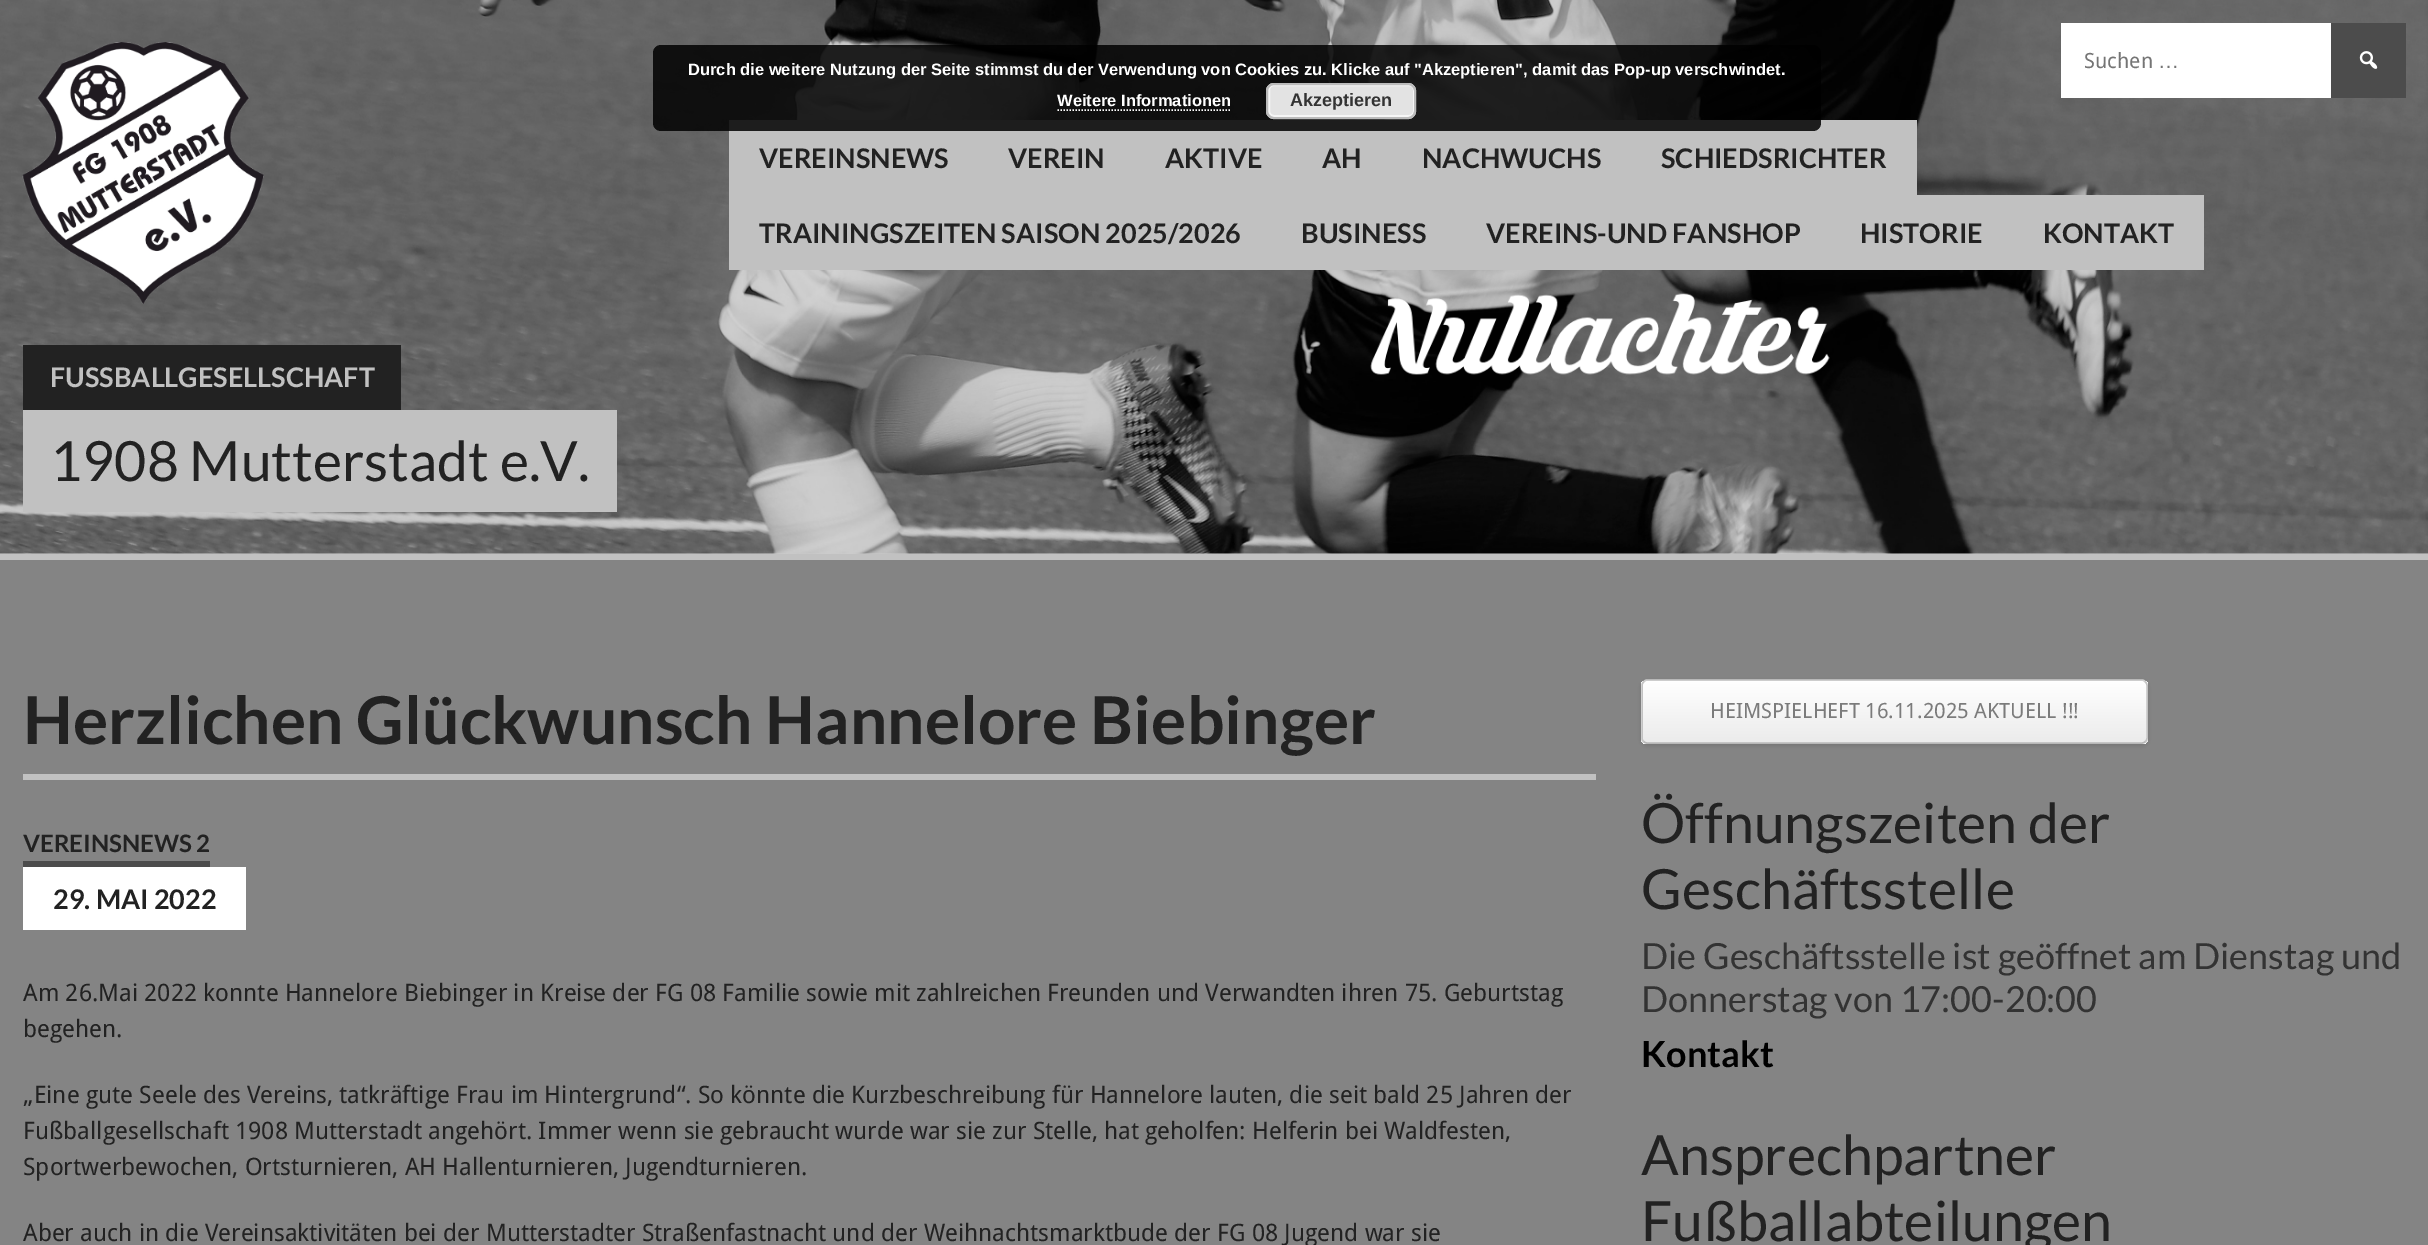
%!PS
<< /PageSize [2428 1245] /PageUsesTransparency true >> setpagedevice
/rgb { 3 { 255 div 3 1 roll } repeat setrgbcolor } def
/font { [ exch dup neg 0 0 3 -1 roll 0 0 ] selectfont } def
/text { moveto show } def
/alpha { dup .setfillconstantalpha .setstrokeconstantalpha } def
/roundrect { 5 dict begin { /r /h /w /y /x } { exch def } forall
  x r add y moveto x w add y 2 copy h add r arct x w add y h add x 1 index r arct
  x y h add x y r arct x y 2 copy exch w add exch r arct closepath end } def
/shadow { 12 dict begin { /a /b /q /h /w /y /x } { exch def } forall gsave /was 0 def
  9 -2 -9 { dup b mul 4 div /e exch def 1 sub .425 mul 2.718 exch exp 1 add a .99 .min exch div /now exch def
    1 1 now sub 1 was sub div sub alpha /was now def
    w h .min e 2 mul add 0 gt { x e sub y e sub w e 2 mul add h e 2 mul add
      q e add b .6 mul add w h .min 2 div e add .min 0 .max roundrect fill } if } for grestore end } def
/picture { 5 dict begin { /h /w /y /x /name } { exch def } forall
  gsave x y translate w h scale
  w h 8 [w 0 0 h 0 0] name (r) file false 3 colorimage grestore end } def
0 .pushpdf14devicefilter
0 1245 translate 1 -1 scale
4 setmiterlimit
132 132 132 rgb
0 0 2428 1245 rectfill
204 204 204 rgb
0 553 2428 1 rectfill
193 193 193 rgb
0 554 2428 6 rectfill
(img_01.rgb) 0 0 2428 554 picture
255 255 255 rgb
2061 23 270 75 rectfill
76 76 76 rgb
2331 23 75 75 rectfill
(img_02.rgb) 2359 51 19 18 picture
193 193 193 rgb
729 120 1188 75 rectfill
729 195 1475 75 rectfill
(img_03.rgb) 22 42 242 262 picture
34 34 34 rgb
23 345 378 65 rectfill
193 193 193 rgb
23 410 594 102 rectfill
23 774 1573 6 rectfill
76 76 76 rgb
23 861 187 6 rectfill
255 255 255 rgb
23 867 223 63 rectfill
0 0 0 rgb
1641 681 507 65 6 1.5 0.1 shadow
gsave
1641 680 507 64 6 roundrect clip newpath
gsave 1641 681 moveto 507 0 rlineto 0 62 rlineto -507 0 rlineto closepath clip newpath
<< /ShadingType 2 /ColorSpace /DeviceRGB /Coords [1643 743 1643 681] /Extend [true true] /Function << /FunctionType 2 /Domain [0 1] /C0 [0.922 0.922 0.922] /C1 [1 1 1] /N 1 >> >> shfill grestore
gsave 1641 743 moveto 507 0 rlineto 0 1 rlineto -507 0 rlineto closepath clip newpath
<< /ShadingType 2 /ColorSpace /DeviceRGB /Coords [1643 804 1643 743] /Extend [true true] /Function << /FunctionType 2 /Domain [0 1] /C0 [0.922 0.922 0.922] /C1 [1 1 1] /N 1 >> >> shfill grestore
grestore
255 255 255 rgb
1647 682 moveto 495 0 rlineto 2 0 4 3 4 5 rcurveto 0 54 rlineto 1 -1 1 -2 1 -3 rcurveto 0 -52 rlineto 0 -3 -2 -5 -5 -5 rcurveto -494 0 rlineto -2 0 -4 1 -5 3 rcurveto 1 -1 3 -2 4 -2 rcurveto closepath fill
205 205 205 rgb
1.5 setlinewidth
1643.5 682 moveto 1 -1 2 -2 3.5 -2 rcurveto 495 0 rlineto 1.5 0 2.5 1 3.5 2 rcurveto stroke
194 194 194 rgb
2145.5 682 moveto 1 1 1.5 2 1.5 3.5 rcurveto 0 52.5 rlineto 0 1.5 -0.5 2.5 -1.5 3.5 rcurveto stroke
183 183 183 rgb
2145.5 741.5 moveto -1 1 -2 1.5 -3.5 1.5 rcurveto -495 0 rlineto -1.5 0 -2.5 -0.5 -3.5 -1.5 rcurveto stroke
194 194 194 rgb
1643.5 741.5 moveto -1 -1 -1.5 -2 -1.5 -3.5 rcurveto 0 -52.5 rlineto 0 -1.5 0.5 -2.5 1.5 -3.5 rcurveto stroke
0.85 alpha
0 0 0 rgb
653 45 1168 86 8 roundrect fill
1 alpha
255 255 255 rgb
[1.5 1.5] 0 setdash
1057.5 110 moveto 174 0 rlineto stroke
227 227 227 rgb
1266 83 150 36 8 roundrect fill
246 246 246 rgb
2 setlinewidth
[] 0 setdash
1269 85 145 31 5 roundrect stroke
187 187 187 rgb
1267 84 148 34 7 roundrect stroke
/DroidSans-Regular 21 font
117 117 117 rgb
(Suchen) 2084 68 text
/LiberationSans-Regular 21 font
(…) 2158 68 text
/Lato-Bold 27 font
34 34 34 rgb
(VEREINSNEWS) 759 168 text
(VEREIN) 1008 168 text
(AKTIVE) 1165 168 text
(AH) 1322 168 text
(NACHWUCHS) 1422 168 text
(SCHIEDSRICHTER) 1661 168 text
(TRAININGSZEITEN SAISON 2025/2026) 759 243 text
(BUSINESS) 1301 243 text
(VEREINS-UND FANSHOP) 1486 243 text
(HISTORIE) 1860 243 text
(KONTAKT) 2043 243 text
193 193 193 rgb
(FUSSBALLGESELLSCHAFT) 50 387 text
/Lato-Regular 55.5 font
34 34 34 rgb
(1908 Mutterstadt e.V.) 50 481 text
/Lato-Bold 66 font
(Herzlichen Glückwunsch Hannelore Biebinger) 23 744 text
/Lato-Bold 24 font
(VEREINSNEWS 2) 23 852 text
/Lato-Bold 27 font
(29. MAI 2022) 53 909 text
/DroidSans-Regular 24 font
(Am 26.Mai 2022 konnte Hannelore Biebinger in Kreise der FG 08 Familie sowie mit zahlreichen Freunden und Verwandten ihren 75. Geburtstag) 23 1001 text
(begehen.) 23 1037 text
(„Eine gute Seele des Vereins, tatkräftige Frau im Hintergrund“. So könnte die Kurzbeschreibung für Hannelore lauten, die seit bald 25 Jahren der) 23 1103 text
(Fußballgesellschaft 1908 Mutterstadt angehört. Immer wenn sie gebraucht wurde war sie zur Stelle, hat geholfen: Helferin bei Waldfesten,) 23 1139 text
(Sportwerbewochen, Ortsturnieren, AH Hallenturnieren, Jugendturnieren.) 23 1175 text
(Aber auch in die Vereinsaktivitäten bei der Mutterstadter Straßenfastnacht und der Weihnachtsmarktbude der FG 08 Jugend war sie) 23 1241 text
/DroidSans-Regular 21 font
123 123 123 rgb
(HEIMSPIELHEFT 16.11.2025 AKTUELL !!!) 1710 718 text
/Lato-Regular 55.5 font
34 34 34 rgb
(Öffnungszeiten der) 1641 843 text
(Geschäftsstelle) 1641 909 text
/Lato-Regular 36 font
51 51 51 rgb
(Die Geschäftsstelle ist geöffnet am Dienstag und) 1641 969 text
(Donnerstag von 17:00-20:00) 1641 1012 text
/Lato-Bold 36 font
0 0 0 rgb
(Kontakt) 1641 1067 text
/Lato-Regular 55.5 font
34 34 34 rgb
(Ansprechpartner) 1641 1175 text
(Fußballabteilungen) 1641 1241 text
/LiberationSans-Bold 16.5 font
255 255 255 rgb
(Durch die weitere Nutzung der Seite stimmst du der Verwendung von Cookies zu. Klicke auf "Akzeptieren", damit das Pop-up verschwindet.) 688 75 text
(Weitere Informationen) 1057 106 text
/LiberationSans-Bold 18 font
51 51 51 rgb
(Akzeptieren) 1290 106 text
.poppdf14devicefilter showpage
